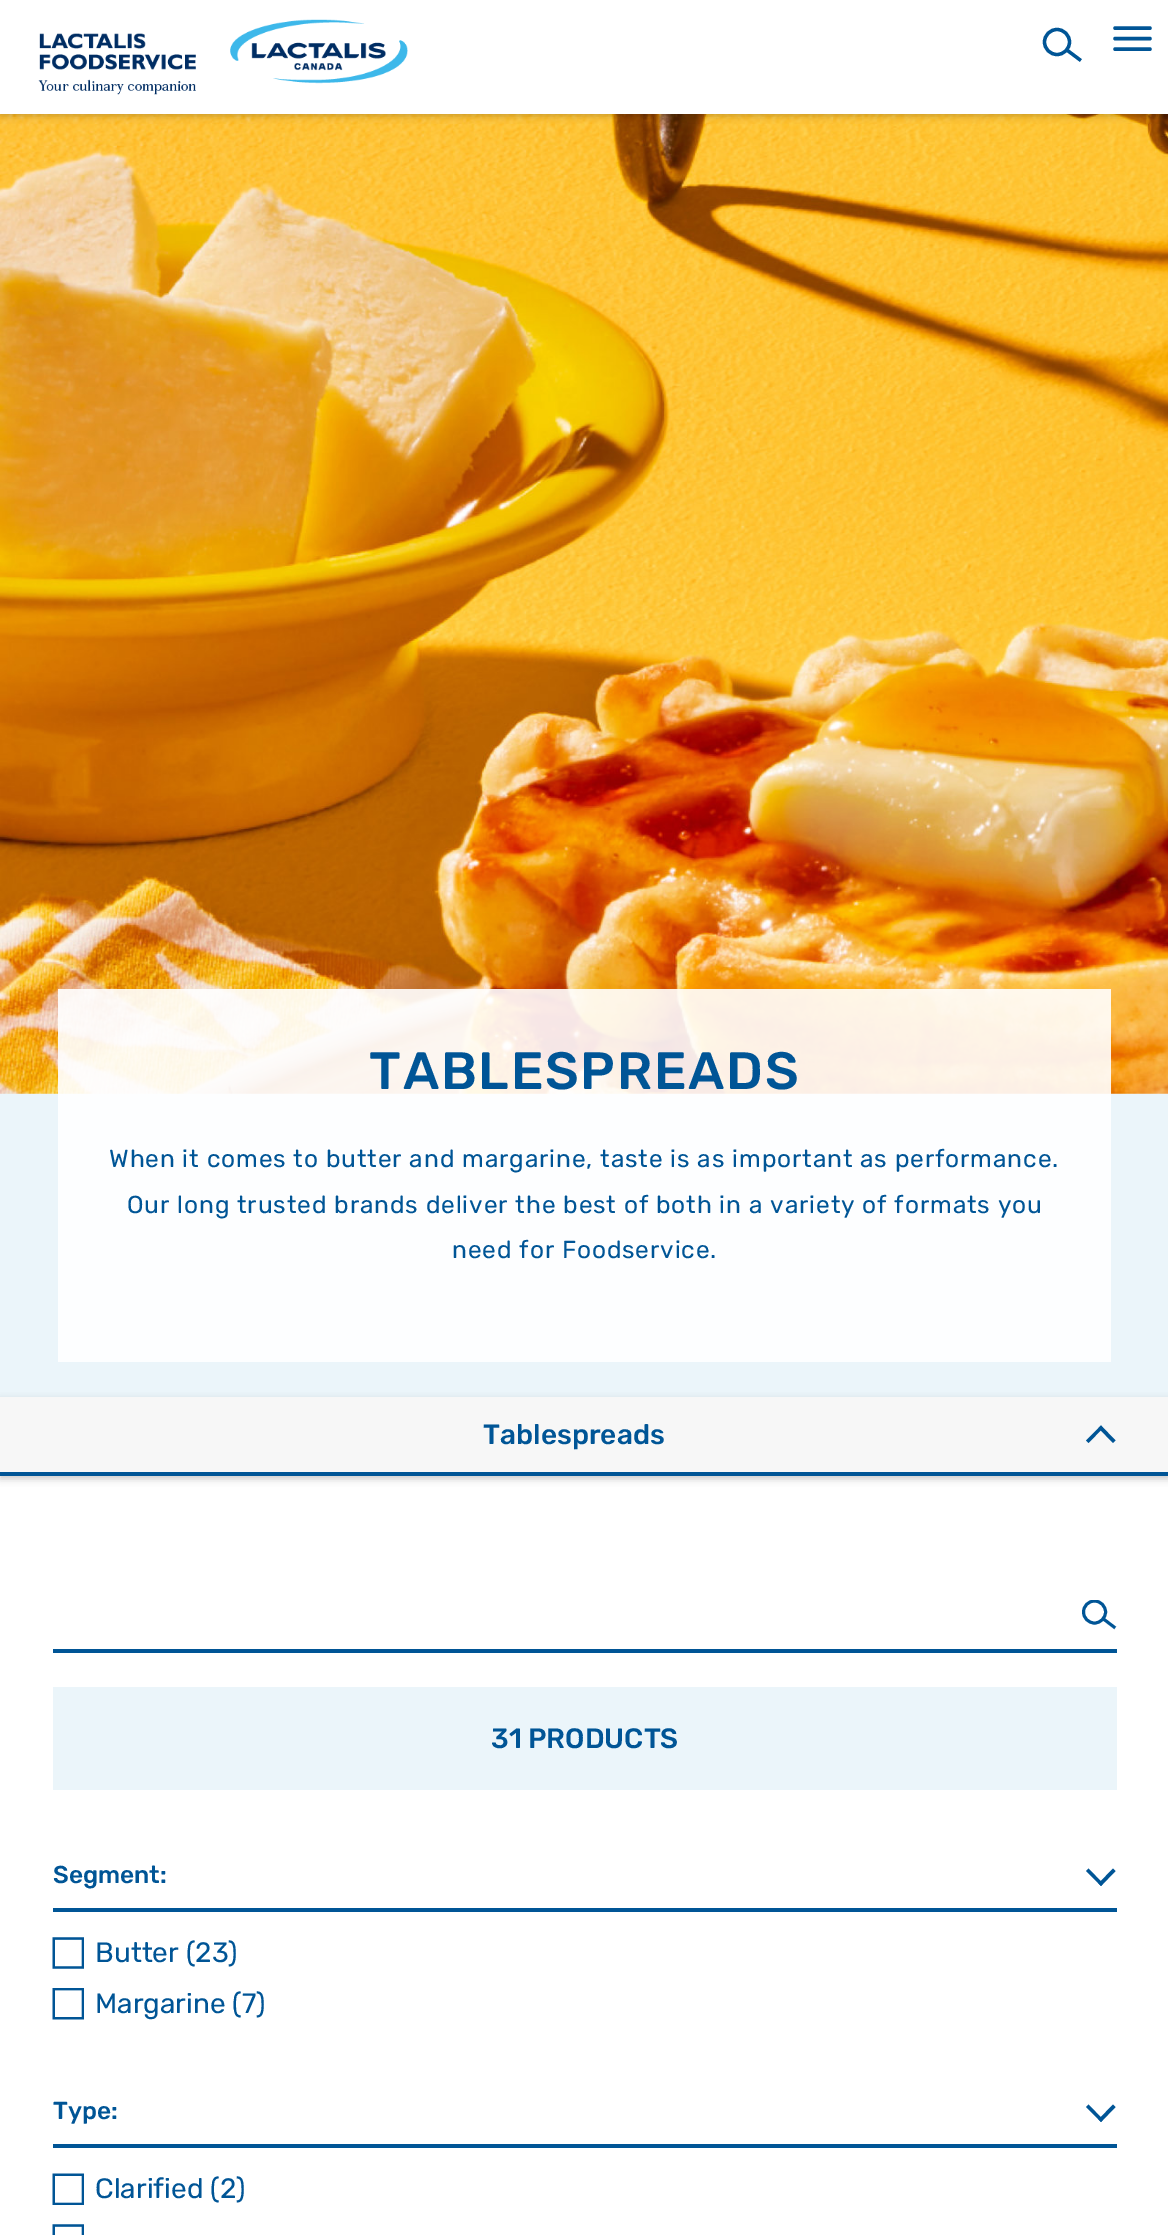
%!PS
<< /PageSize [1168 2235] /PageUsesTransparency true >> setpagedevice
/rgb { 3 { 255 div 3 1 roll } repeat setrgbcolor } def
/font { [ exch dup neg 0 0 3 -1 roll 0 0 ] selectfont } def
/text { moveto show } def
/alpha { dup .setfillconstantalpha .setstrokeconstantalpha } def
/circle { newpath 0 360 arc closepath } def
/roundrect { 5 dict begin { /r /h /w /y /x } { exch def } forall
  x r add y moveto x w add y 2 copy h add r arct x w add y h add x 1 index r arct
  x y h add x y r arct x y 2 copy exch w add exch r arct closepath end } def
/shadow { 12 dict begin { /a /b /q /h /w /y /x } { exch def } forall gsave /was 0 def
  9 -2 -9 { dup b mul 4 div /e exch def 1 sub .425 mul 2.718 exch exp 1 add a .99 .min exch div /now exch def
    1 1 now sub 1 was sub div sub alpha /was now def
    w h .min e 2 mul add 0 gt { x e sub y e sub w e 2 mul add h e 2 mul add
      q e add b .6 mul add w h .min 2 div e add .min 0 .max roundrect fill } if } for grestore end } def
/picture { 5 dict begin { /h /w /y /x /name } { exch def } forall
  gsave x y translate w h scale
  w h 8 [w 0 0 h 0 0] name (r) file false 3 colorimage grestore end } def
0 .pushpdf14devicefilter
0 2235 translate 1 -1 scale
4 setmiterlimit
235 245 250 rgb
0 0 1168 2235 rectfill
(img_02.rgb) 0 114 1168 980 picture
0 0 0 rgb
0 2 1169 114 0 3.5 0.2 shadow
255 255 255 rgb
0 0 1168 114 rectfill
(img_01.rgb) 38 19 370 76 picture
0 85 150 rgb
3.3 setlinewidth
1057 42 12.5 circle stroke
2 setlinecap
1067.5 50.5 moveto 12 9 rlineto stroke
3.5 setlinewidth
1 setlinecap
1115 49 moveto 35 0 rlineto 1115 38.5 moveto 35 0 rlineto 1115 28 moveto 35 0 rlineto stroke
0.9 alpha
255 255 255 rgb
58 989 1053 373 rectfill
1 alpha
0 1476 1168 759 rectfill
0 0 0 rgb
0 1400 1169 79 0 3.5 0.2 shadow
247 247 247 rgb
0 1397 1168 75 rectfill
0 85 150 rgb
0 1472 1168 4 rectfill
1101 1425.5 moveto 14.5 15 rlineto -2.5 2.5 rlineto -14.5 -15 rlineto closepath fill
1101 1425.5 moveto 2 2.5 rlineto -14.5 15 rlineto -2.5 -2.5 rlineto closepath fill
gsave
1082 1600 35 31 rectclip
2.9 setlinewidth
0 setlinecap
1094.5 1612 11 circle stroke
grestore
2.9 setlinewidth
2 setlinecap
1103.5 1619 moveto 10.5 8 rlineto stroke
53 1649 1064 4 rectfill
235 245 250 rgb
53 1687 1064 103 rectfill
0 85 150 rgb
53 1908 1064 4 rectfill
1101 1886 moveto -15 -15 rlineto 2.5 -2.5 rlineto 14.5 15 rlineto closepath fill
1101 1886 moveto -2.5 -2.5 rlineto 14.5 -15 rlineto 2.5 2.5 rlineto closepath fill
(img_03.rgb) 52 1937 32 32 picture
(img_04.rgb) 52 1988 32 32 picture
53 2144 1064 4 rectfill
1101 2122 moveto -15 -15 rlineto 2.5 -2.5 rlineto 14.5 15 rlineto closepath fill
1101 2122 moveto -2.5 -2.5 rlineto 14.5 -15 rlineto 2.5 2.5 rlineto closepath fill
(img_05.rgb) 52 2173 32 32 picture
(img_06.rgb) 52 2224 32 11 picture
/Rubik-Medium 52.5 font
369 1089 moveto 1.75 0 (TABLESPREADS) ashow
/Rubik-Regular 24.5 font
109 1167 moveto 0.88 0 (When it comes to butter and margarine, taste is as important as performance.) ashow
127 1213 moveto 0.88 0 (Our long trusted brands deliver the best of both in a variety of formats you) ashow
452 1258 moveto 0.88 0 (need for Foodservice.) ashow
/Rubik-Medium 28 font
(Tablespreads) 483 1444 text
(31 PRODUCTS) 491 1748 text
/Rubik-Medium 24.5 font
(Segment:) 53 1883 text
/Rubik-Regular 28 font
(Butter \(23\)) 95 1962 text
(Margarine \(7\)) 95 2013 text
/Rubik-Medium 24.5 font
(Type:) 53 2119 text
/Rubik-Regular 28 font
(Clarified \(2\)) 95 2198 text
.poppdf14devicefilter showpage
